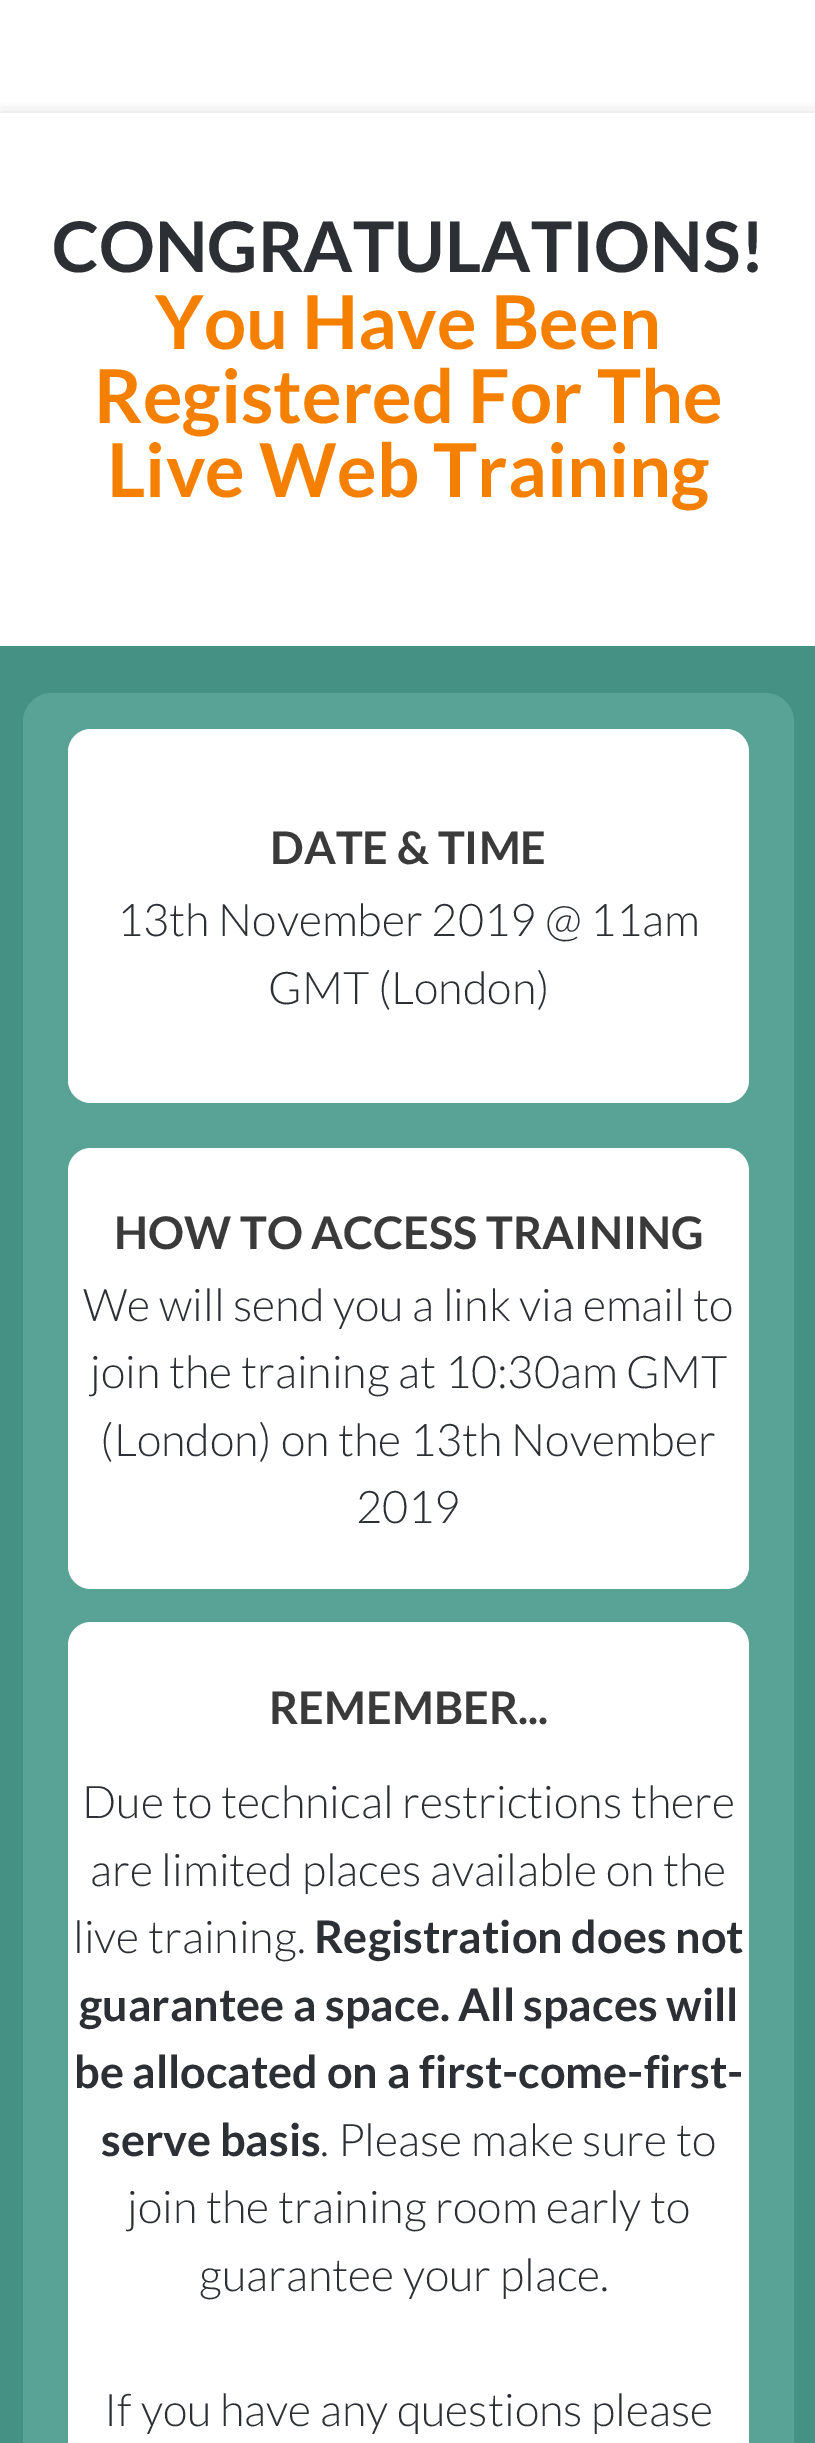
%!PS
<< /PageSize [815 2443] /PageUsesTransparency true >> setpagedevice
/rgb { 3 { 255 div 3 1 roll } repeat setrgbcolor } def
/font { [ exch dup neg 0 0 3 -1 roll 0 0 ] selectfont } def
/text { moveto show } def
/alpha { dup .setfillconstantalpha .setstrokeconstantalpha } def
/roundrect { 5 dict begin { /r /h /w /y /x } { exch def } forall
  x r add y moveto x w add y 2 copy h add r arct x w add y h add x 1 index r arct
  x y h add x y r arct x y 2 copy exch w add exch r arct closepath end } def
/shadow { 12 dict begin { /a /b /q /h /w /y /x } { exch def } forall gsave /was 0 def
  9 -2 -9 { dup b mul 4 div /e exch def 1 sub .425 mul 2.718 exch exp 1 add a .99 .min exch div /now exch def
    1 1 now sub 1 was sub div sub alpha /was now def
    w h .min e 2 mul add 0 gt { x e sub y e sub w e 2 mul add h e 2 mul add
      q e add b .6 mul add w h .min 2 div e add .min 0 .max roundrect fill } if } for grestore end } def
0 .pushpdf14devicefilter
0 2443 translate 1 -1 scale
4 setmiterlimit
255 255 255 rgb
0 0 815 2443 rectfill
gsave
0 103 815 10 rectclip
0 0 0 rgb
0 113 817 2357 0 9 0.14 shadow
grestore
69 146 133 rgb
0 646 815 1797 rectfill
88 163 150 rgb
23 693 771 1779 29 roundrect fill
255 255 255 rgb
68 729 681 374 23 roundrect fill
68 1148 681 441 23 roundrect fill
68 1622 681 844 23 roundrect fill
/Lato-Bold 69.75 font
44 47 52 rgb
(CONGRATULATIONS!) 52 272 text
/Lato-Bold 74.25 font
245 128 0 rgb
(You Have Been) 155 349 text
(Registered For The) 94 423 text
(Live Web Training) 107 497 text
/Lato-Bold 45 font
58 58 58 rgb
(DATE & TIME) 270 864 text
/Lato-Light 45 font
44 47 52 rgb
(13th November 2019 @ 11am) 117 936 text
(GMT \(London\)) 268 1004 text
/Lato-Bold 45 font
58 58 58 rgb
(HOW TO ACCESS TRAINING) 114 1249 text
/Lato-Light 45 font
44 47 52 rgb
(We will send you a link via email to) 83 1321 text
(join the training at 10:30am GMT) 90 1388 text
(\(London\) on the 13th November) 100 1456 text
(2019) 356 1523 text
/Lato-Bold 45 font
58 58 58 rgb
(REMEMBER...) 269 1724 text
/Lato-Light 45 font
44 47 52 rgb
(Due to technical restrictions there) 82 1818 text
(are limited places available on the) 90 1886 text
(live training.) 73 1953 text
/Lato-Bold 45 font
(Registration does not) 314 1953 text
(guarantee a space. All spaces will) 79 2021 text
(be allocated on a first-come-first-) 74 2088 text
(serve basis) 101 2156 text
/Lato-Light 45 font
(. Please make sure to) 320 2156 text
(join the training room early to) 127 2223 text
(guarantee your place.) 199 2291 text
(If you have any questions please) 104 2426 text
.poppdf14devicefilter showpage
